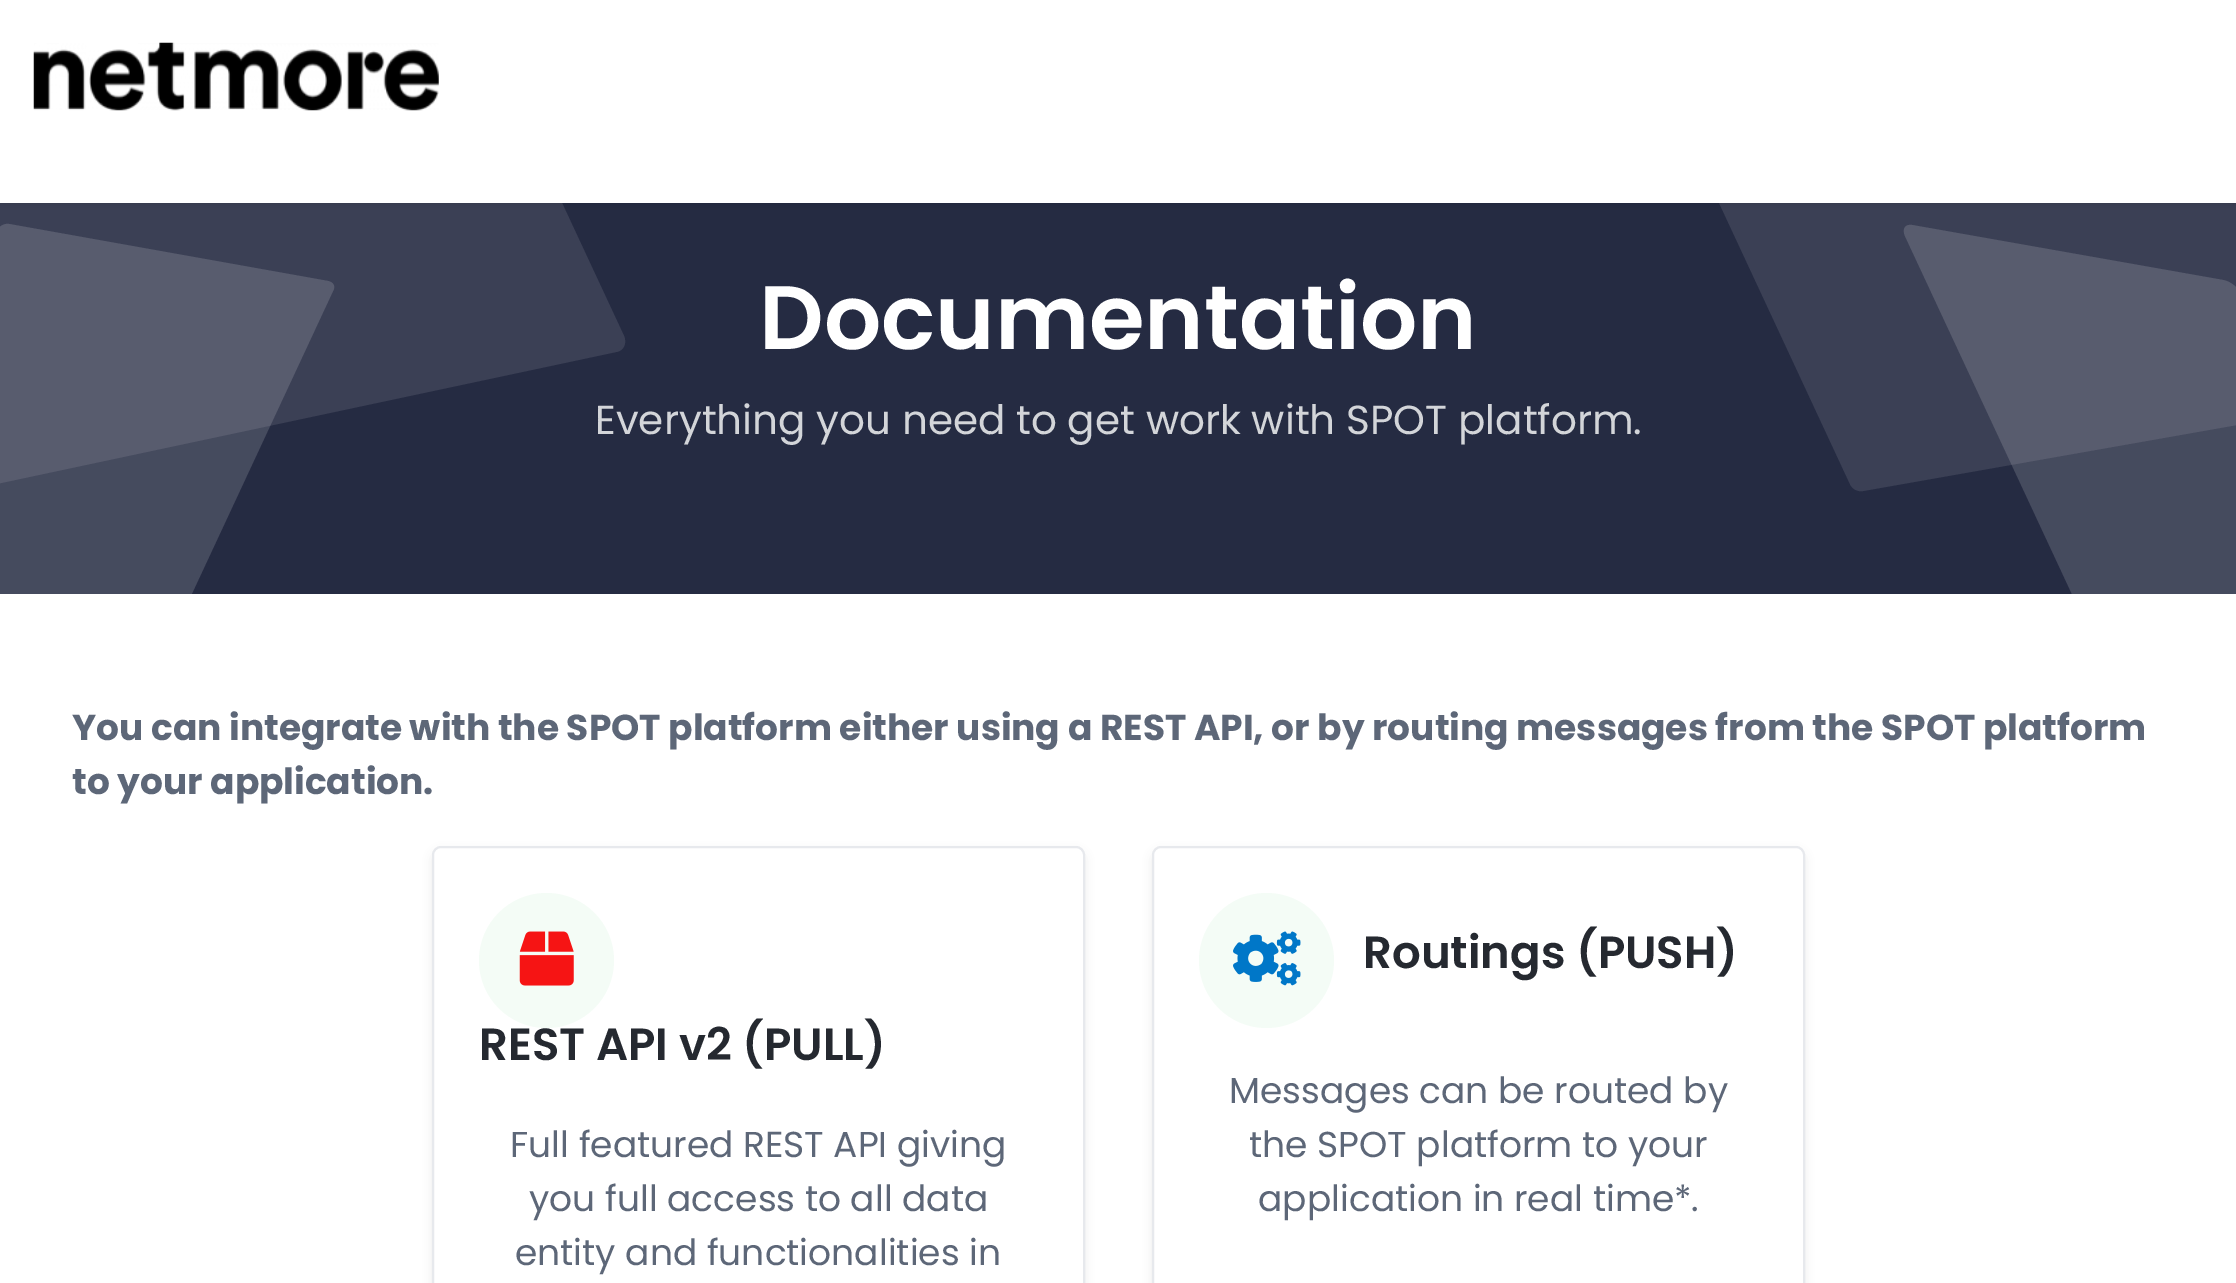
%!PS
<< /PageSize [2236 1283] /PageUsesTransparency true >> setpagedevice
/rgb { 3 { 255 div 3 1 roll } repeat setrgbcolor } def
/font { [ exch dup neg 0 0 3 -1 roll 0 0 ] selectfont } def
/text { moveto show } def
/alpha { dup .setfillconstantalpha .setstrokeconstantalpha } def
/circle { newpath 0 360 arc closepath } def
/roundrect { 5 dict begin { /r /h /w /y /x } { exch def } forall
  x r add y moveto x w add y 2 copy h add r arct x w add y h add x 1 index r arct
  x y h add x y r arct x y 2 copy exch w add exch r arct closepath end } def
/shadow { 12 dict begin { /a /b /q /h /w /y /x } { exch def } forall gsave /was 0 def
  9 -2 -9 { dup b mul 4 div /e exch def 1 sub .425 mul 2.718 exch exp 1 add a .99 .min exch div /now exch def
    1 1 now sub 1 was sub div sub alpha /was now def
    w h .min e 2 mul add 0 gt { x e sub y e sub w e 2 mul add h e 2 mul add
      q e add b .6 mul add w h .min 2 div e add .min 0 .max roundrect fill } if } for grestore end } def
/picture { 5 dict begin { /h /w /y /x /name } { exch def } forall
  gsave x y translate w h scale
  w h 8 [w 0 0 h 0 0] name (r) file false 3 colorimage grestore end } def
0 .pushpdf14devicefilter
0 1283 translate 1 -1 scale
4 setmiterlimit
255 255 255 rgb
0 0 2236 1283 rectfill
37 43 66 rgb
0 203 2236 391 rectfill
59 64 85 rgb
-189 152 moveto 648 -137 rlineto 7 -2 16 3 20 10 rcurveto 145 311 rlineto 3 7 0 15 -8 16 rcurveto -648 138 rlineto -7 1 -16 -3 -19 -11 rcurveto -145 -310 rlineto -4 -8 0 -15 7 -17 rcurveto closepath fill
1706 154 moveto 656 -116 rlineto 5 -1 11 2 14 7 rcurveto 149 320 rlineto 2 5 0 9 -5 10 rcurveto -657 116 rlineto -5 1 -11 -2 -13 -7 rcurveto -149 -320 rlineto -3 -5 0 -9 5 -10 rcurveto closepath fill
0 0 0 rgb
0 2 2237 203 0 4.5 0.1 shadow
255 255 255 rgb
0 0 2236 203 rectfill
(img_01.rgb) 33 42 406 69 picture
gsave
0 155 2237 439 rectclip
0.15 alpha
9 224 moveto 319 57 rlineto 5 1 8 5 5 10 rcurveto -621 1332 rlineto -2 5 -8 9 -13 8 rcurveto -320 -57 rlineto -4 -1 -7 -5 -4 -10 rcurveto 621 -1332 rlineto 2 -5 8 -9 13 -8 rcurveto closepath fill
1912 225 moveto 311 55 rlineto 7 1 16 8 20 16 rcurveto 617 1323 rlineto 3 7 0 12 -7 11 rcurveto -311 -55 rlineto -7 -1 -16 -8 -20 -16 rcurveto -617 -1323 rlineto -3 -7 0 -12 7 -11 rcurveto closepath fill
grestore
0 0 0 rgb
432 851 653 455 9 4.5 0.07 shadow
255 255 255 rgb
433 847 651 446 8 roundrect gsave fill grestore
231 233 237 rgb
2 setlinewidth
stroke
244 252 246 rgb
546.5 960.5 67.5 circle fill
(img_02.rgb) 519 931 55 55 picture
0 0 0 rgb
1152 851 653 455 9 4.5 0.07 shadow
255 255 255 rgb
1153 847 651 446 8 roundrect gsave fill grestore
231 233 237 rgb
stroke
244 252 246 rgb
1266.5 960.5 67.5 circle fill
(img_03.rgb) 1233 931 68 55 picture
/Poppins-SemiBold 90 font
255 255 255 rgb
(Documentation) 759 349 text
/Poppins-Regular 40.5 font
211 213 217 rgb
(Everything you need to get work with SPOT platform.) 595 434 text
/Poppins-Bold 36 font
93 103 120 rgb
(You can integrate with the SPOT platform either using a REST API, or by routing messages from the SPOT platform) 72 740 text
(to your application.) 72 794 text
/Poppins-SemiBold 45 font
37 41 48 rgb
(REST API v2 \(PULL\)) 479 1060 text
/Poppins-Regular 36 font
93 103 120 rgb
(Full featured REST API giving) 510 1157 text
(you full access to all data) 529 1211 text
(entity and functionalities in) 515 1265 text
/Poppins-SemiBold 45 font
37 41 48 rgb
(Routings \(PUSH\)) 1363 968 text
/Poppins-Regular 36 font
93 103 120 rgb
(Messages can be routed by) 1229 1103 text
(the SPOT platform to your) 1249 1157 text
(application in real time*.) 1258 1211 text
.poppdf14devicefilter showpage
